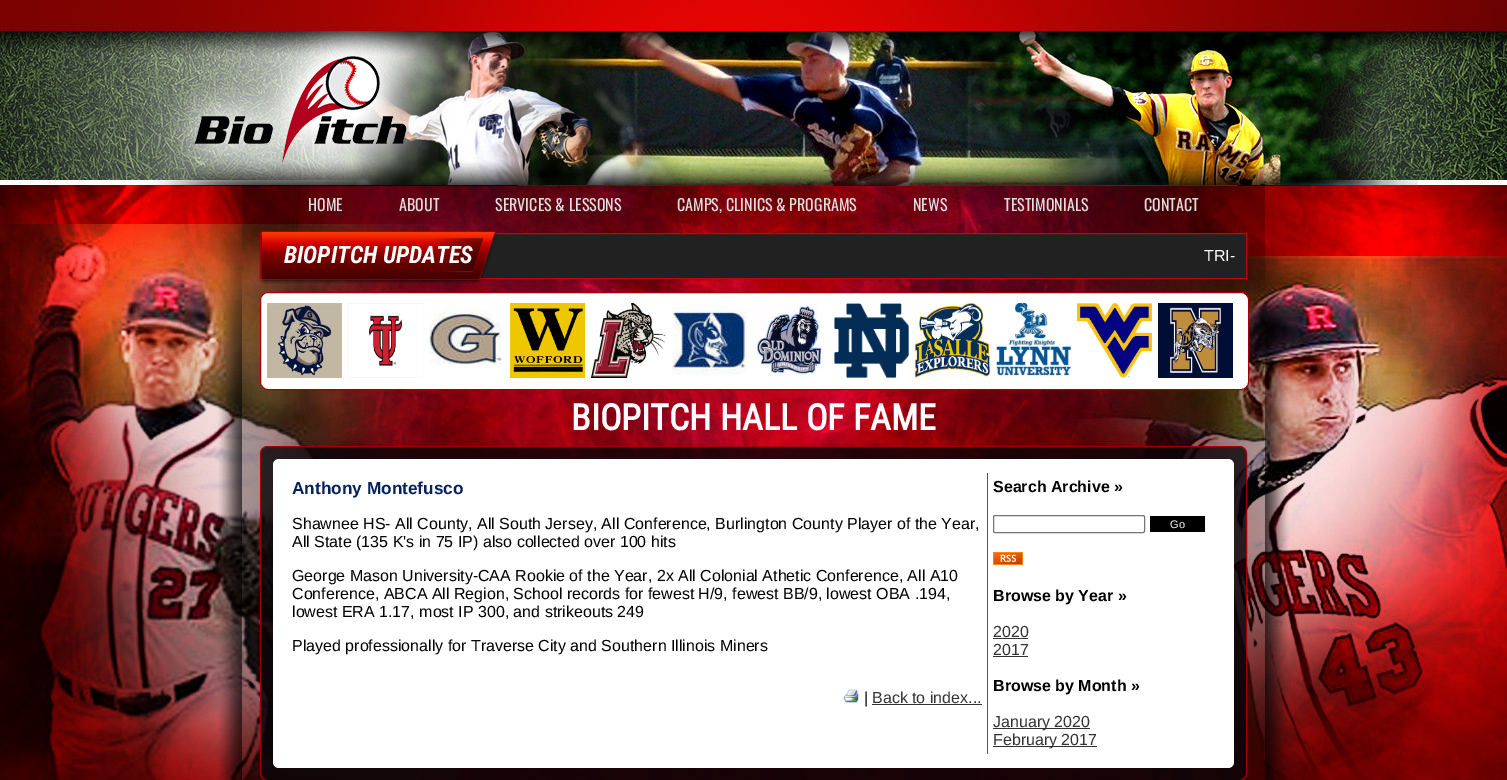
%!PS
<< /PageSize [1507 780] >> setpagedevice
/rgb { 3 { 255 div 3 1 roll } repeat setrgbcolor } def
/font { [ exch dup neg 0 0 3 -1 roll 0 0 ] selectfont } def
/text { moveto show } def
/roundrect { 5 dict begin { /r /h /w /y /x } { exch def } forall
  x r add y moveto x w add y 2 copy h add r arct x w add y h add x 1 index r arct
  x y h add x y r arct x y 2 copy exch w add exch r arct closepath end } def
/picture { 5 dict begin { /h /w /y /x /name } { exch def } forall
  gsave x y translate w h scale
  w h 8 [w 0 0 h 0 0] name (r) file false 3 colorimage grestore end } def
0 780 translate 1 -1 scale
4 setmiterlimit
255 255 255 rgb
0 0 1507 780 rectfill
(img_01.rgb) 0 0 1507 780 picture
(img_02.rgb) 164 31 274 149 picture
33 33 33 rgb
260.5 233.5 moveto 986 0 rlineto 0 45 rlineto -986 0 rlineto closepath gsave fill grestore
186 10 15 rgb
stroke
(img_03.rgb) 259 231 238 53 picture
255 255 255 rgb
260.5 292.5 988 97 7.5 roundrect gsave fill grestore
161 1 6 rgb
stroke
(img_04.rgb) 267 303 75 75 picture
(img_05.rgb) 348 303 75 75 picture
(img_06.rgb) 429 309 75 59 picture
(img_07.rgb) 510 303 75 75 picture
(img_08.rgb) 591 303 75 75 picture
(img_09.rgb) 672 303 75 73 picture
(img_10.rgb) 756 303 68 75 picture
(img_11.rgb) 834 303 75 75 picture
(img_12.rgb) 915 303 75 75 picture
(img_13.rgb) 996 303 75 74 picture
(img_14.rgb) 1077 303 75 75 picture
(img_15.rgb) 1158 303 75 75 picture
(img_16.rgb) 260 446 987 334 picture
260.5 446.5 986 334 7.5 roundrect stroke
255 255 255 rgb
273 459 961 309 6 roundrect fill
(img_17.rgb) 843 689 16 14 picture
51 51 51 rgb
872 704 110 1 rectfill
85 85 85 rgb
987 473 1 281 rectfill
118 118 118 rgb
993.5 515.5 151 17 1.5 roundrect stroke
0 0 0 rgb
1150 516 55 16 rectfill
(img_18.rgb) 993 552 30 13 picture
51 51 51 rgb
993 638 35 1 rectfill
993 656 35 1 rectfill
993 728 97 1 rectfill
993 746 104 1 rectfill
/Oswald-Regular 16 font
222 222 222 rgb
(HOME) 308 211 text
(ABOUT) 399 211 text
(SERVICES & LESSONS) 495 211 text
(CAMPS, CLINICS & PROGRAMS) 677 211 text
(NEWS) 913 211 text
(TESTIMONIALS) 1004 211 text
(CONTACT) 1144 211 text
/RobotoCondensed-BoldItalic 24 font
255 255 255 rgb
(BIOPITCH UPDATES) 284 263 text
/LiberationSans-Regular 16 font
(TRI-) 1204 261 text
/RobotoCondensed-Bold 36 font
(BIOPITCH HALL OF FAME) 571 430 text
/LiberationSans-Bold 17.25 font
6 34 93 rgb
(Anthony Montefusco) 292 494 text
/LiberationSans-Regular 16 font
0 0 0 rgb
(Shawnee HS- All County, All South Jersey, All Conference, Burlington County Player of the Year,) 292 529 text
(All State \(135 K's in 75 IP\) also collected over 100 hits) 292 547 text
(George Mason University-CAA Rookie of the Year, 2x All Colonial Athetic Conference, All A10) 292 581 text
(Conference, ABCA All Region, School records for fewest H/9, fewest BB/9, lowest OBA .194,) 292 599 text
(lowest ERA 1.17, most IP 300, and strikeouts 249) 292 617 text
(Played professionally for Traverse City and Southern Illinois Miners) 292 651 text
(|) 864 703 text
51 51 51 rgb
(Back to index...) 872 703 text
/LiberationSans-Bold 16 font
0 0 0 rgb
(Search Archive ») 993 492 text
/LiberationSans-Regular 11 font
255 255 255 rgb
(Go) 1170 528 text
/LiberationSans-Bold 16 font
0 0 0 rgb
(Browse by Year ») 993 601 text
/LiberationSans-Regular 16 font
51 51 51 rgb
(2020) 993 637 text
(2017) 993 655 text
/LiberationSans-Bold 16 font
0 0 0 rgb
(Browse by Month ») 993 691 text
/LiberationSans-Regular 16 font
51 51 51 rgb
(January 2020) 993 727 text
(February 2017) 993 745 text
showpage
